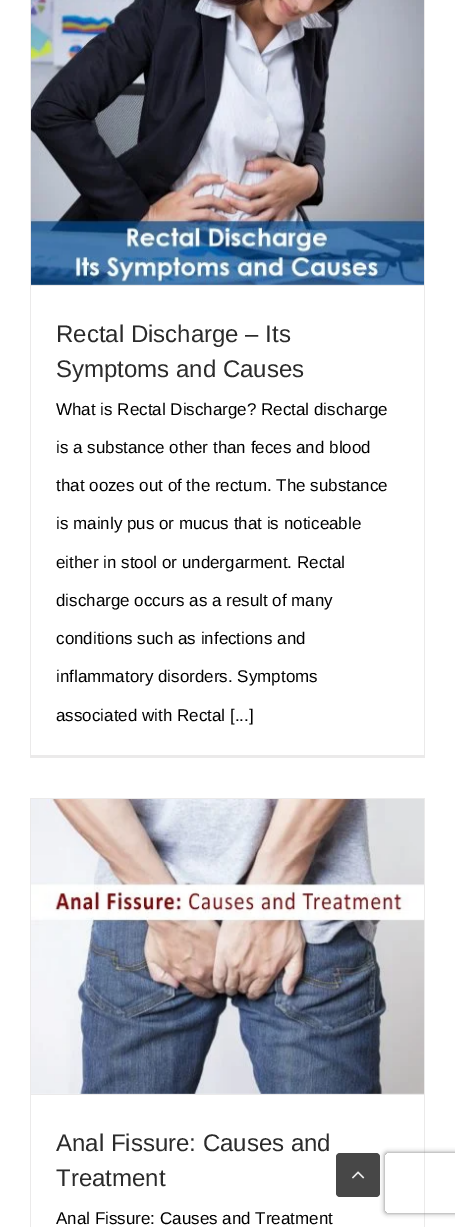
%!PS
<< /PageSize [455 1227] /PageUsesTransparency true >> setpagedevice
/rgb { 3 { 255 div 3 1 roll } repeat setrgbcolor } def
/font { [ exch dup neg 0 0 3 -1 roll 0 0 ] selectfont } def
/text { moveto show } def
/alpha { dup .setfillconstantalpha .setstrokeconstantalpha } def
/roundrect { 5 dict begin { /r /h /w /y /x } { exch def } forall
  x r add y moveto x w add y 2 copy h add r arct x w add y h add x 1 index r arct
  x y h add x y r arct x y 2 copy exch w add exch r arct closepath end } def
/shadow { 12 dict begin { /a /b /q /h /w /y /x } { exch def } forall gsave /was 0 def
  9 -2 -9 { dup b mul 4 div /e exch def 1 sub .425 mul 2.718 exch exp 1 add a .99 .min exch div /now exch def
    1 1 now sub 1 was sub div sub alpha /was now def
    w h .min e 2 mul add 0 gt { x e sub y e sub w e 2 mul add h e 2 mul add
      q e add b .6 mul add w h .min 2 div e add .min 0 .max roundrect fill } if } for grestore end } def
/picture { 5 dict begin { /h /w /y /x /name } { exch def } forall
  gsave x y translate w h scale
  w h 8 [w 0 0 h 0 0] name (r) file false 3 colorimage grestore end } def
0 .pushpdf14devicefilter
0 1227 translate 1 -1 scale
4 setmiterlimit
255 255 255 rgb
0 0 455 1227 rectfill
235 234 234 rgb
424 0 1 758 rectfill
30 755 395 3 rectfill
30 0 1 758 rectfill
31 285 393 1 rectfill
(img_01.rgb) 31 0 393 285 picture
30 798 395 1 rectfill
424 798 1 429 rectfill
30 798 1 429 rectfill
31 1094 393 1 rectfill
(img_02.rgb) 31 799 393 295 picture
gsave
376 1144 moveto 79 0 rlineto 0 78 rlineto -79 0 rlineto closepath 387 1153 moveto 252 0 rlineto 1 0 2 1 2 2 rcurveto 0 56 rlineto 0 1 -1 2 -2 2 rcurveto -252 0 rlineto -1 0 -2 -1 -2 -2 rcurveto 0 -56 rlineto 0 -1 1 -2 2 -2 rcurveto closepath eoclip newpath
128 128 128 rgb
385 1153 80 60 2 2.5 1 shadow
grestore
71 71 71 rgb
336 1153 44 44 4 roundrect fill
(img_03.rgb) 352 1171 13 8 picture
/LiberationSans-Regular 24 font
43 43 43 rgb
(Rectal Discharge – Its) 56 342 text
(Symptoms and Causes) 56 377 text
/LiberationSans-Regular 17 font
0 0 0 rgb
(What is Rectal Discharge? Rectal discharge) 56 415 text
(is a substance other than feces and blood) 56 453 text
(that oozes out of the rectum. The substance) 56 491 text
(is mainly pus or mucus that is noticeable) 56 529 text
(either in stool or undergarment. Rectal) 56 568 text
(discharge occurs as a result of many) 56 606 text
(conditions such as infections and) 56 644 text
(inflammatory disorders. Symptoms) 56 682 text
(associated with Rectal [...]) 56 721 text
/LiberationSans-Regular 24 font
43 43 43 rgb
(Anal Fissure: Causes and) 56 1151 text
(Treatment) 56 1186 text
/LiberationSans-Regular 17 font
0 0 0 rgb
(Anal Fissure: Causes and Treatment) 56 1224 text
.poppdf14devicefilter showpage
